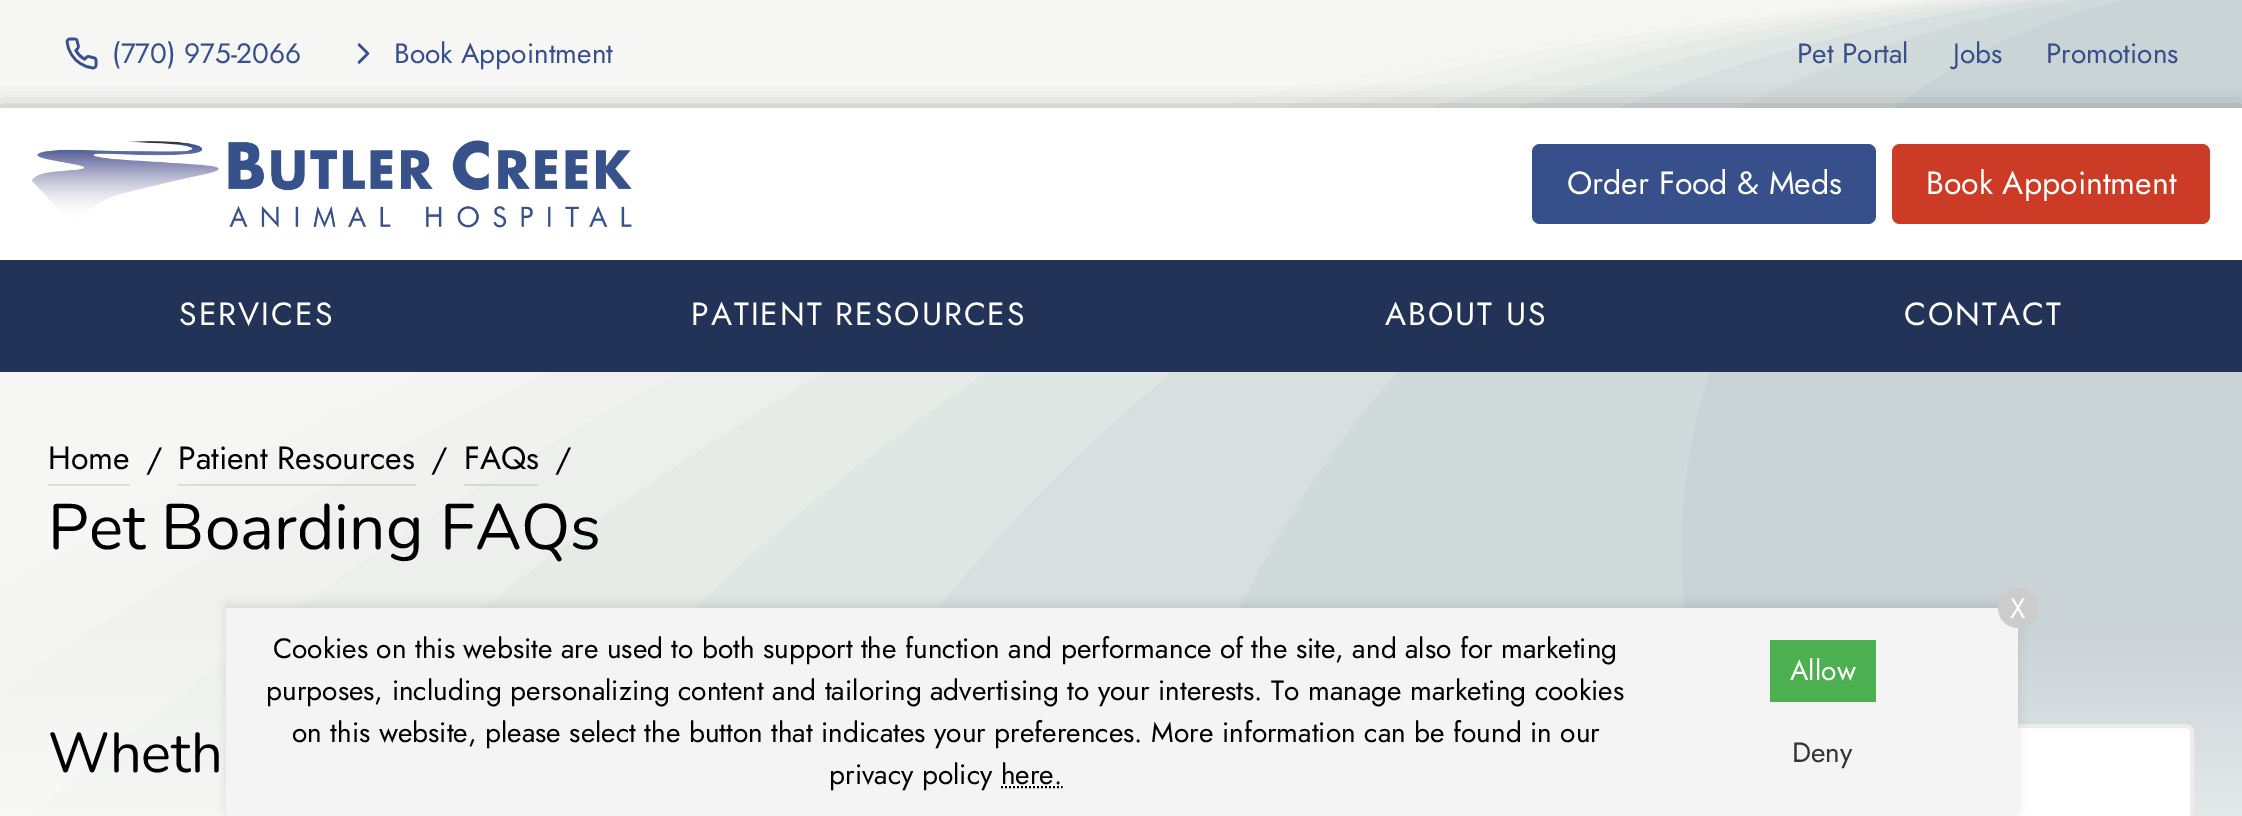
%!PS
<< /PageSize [2242 816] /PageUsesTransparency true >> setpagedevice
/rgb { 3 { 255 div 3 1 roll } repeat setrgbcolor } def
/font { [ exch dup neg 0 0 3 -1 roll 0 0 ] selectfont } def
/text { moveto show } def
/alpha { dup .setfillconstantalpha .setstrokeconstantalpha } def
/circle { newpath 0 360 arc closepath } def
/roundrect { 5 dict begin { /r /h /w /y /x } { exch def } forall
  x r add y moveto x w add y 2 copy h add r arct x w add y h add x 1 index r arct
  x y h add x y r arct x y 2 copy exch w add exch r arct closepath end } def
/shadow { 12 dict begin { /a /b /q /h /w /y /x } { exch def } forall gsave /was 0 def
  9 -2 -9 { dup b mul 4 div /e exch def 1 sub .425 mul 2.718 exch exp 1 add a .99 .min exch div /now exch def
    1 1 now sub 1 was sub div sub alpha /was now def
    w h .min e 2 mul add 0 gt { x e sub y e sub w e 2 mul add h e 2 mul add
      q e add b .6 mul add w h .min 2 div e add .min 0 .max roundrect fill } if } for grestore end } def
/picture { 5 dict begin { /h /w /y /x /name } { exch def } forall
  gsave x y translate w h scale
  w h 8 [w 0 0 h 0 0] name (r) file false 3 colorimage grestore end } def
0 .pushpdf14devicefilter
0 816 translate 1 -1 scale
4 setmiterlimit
255 255 255 rgb
0 0 2242 816 rectfill
(img_01.rgb) 0 0 2242 816 picture
0.5 alpha
0 0 2242 108 rectfill
1 alpha
(img_02.rgb) 65 37 33 33 picture
(img_03.rgb) 357 43 13 21 picture
0 0 0 rgb
0 112 2242 152 0 12 0.4 shadow
255 255 255 rgb
0 108 2242 152 rectfill
(img_04.rgb) 32 140 600 88 picture
55 80 139 rgb
1532 144 344 80 8 roundrect fill
203 59 37 rgb
1892 144 318 80 8 roundrect fill
35 51 88 rgb
0 260 2242 112 rectfill
0.5 alpha
255 255 255 rgb
0 372 2242 256 rectfill
1 alpha
221 221 219 rgb
48 484 82 2 rectfill
0.1 alpha
0 0 0 rgb
178 484 238 2 rectfill
464 484 74 2 rectfill
1 alpha
255 255 255 rgb
1524 726 668 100 6 roundrect gsave fill grestore
236 237 232 rgb
4 setlinewidth
stroke
0 0 0 rgb
226 604 1792 208 0 5 0.1 shadow
244 244 244 rgb
226 608 1792 208 rectfill
204 204 204 rgb
2018 608 20 circle fill
0 0 0 rgb
2 setlinewidth
[2 2] 0 setdash
1001 787 moveto 61.5 0 rlineto stroke
76 175 80 rgb
1770 640 106 62 rectfill
/Jost-Regular 28 font
55 80 139 rgb
(\(770\) 975-2066) 112 63 text
(Book Appointment) 394 63 text
(Pet Portal) 1797 63 text
(Jobs) 1953 63 text
(Promotions) 2046 63 text
/Jost-Regular 32 font
255 255 255 rgb
(Order Food & Meds) 1567 194 text
(Book Appointment) 1926 194 text
179 325 moveto 2 0 (SERVICES) ashow
691 325 moveto 2 0 (PATIENT RESOURCES) ashow
1385 325 moveto 2 0 (ABOUT US) ashow
1904 325 moveto 2 0 (CONTACT) ashow
0 0 0 rgb
(Home) 48 469 text
(/) 146 470 text
(Patient Resources) 178 469 text
(/) 431 470 text
(FAQs) 464 469 text
(/) 555 470 text
/Nunito-Regular 64 font
(Pet Boarding FAQs) 48 549 text
/Nunito-Regular 56 font
(Wheth) 48 772 text
/Jost-Regular 28 font
255 255 255 rgb
(X) 2010 618 text
0 0 0 rgb
(Cookies on this website are used to both support the function and performance of the site, and also for marketing) 273 658 text
(purposes, including personalizing content and tailoring advertising to your interests. To manage marketing cookies) 266 700 text
(on this website, please select the button that indicates your preferences. More information can be found in our) 292 742 text
(privacy policy here.) 829 784 text
255 255 255 rgb
(Allow) 1790 680 text
51 51 51 rgb
(Deny) 1792 762 text
.poppdf14devicefilter showpage
